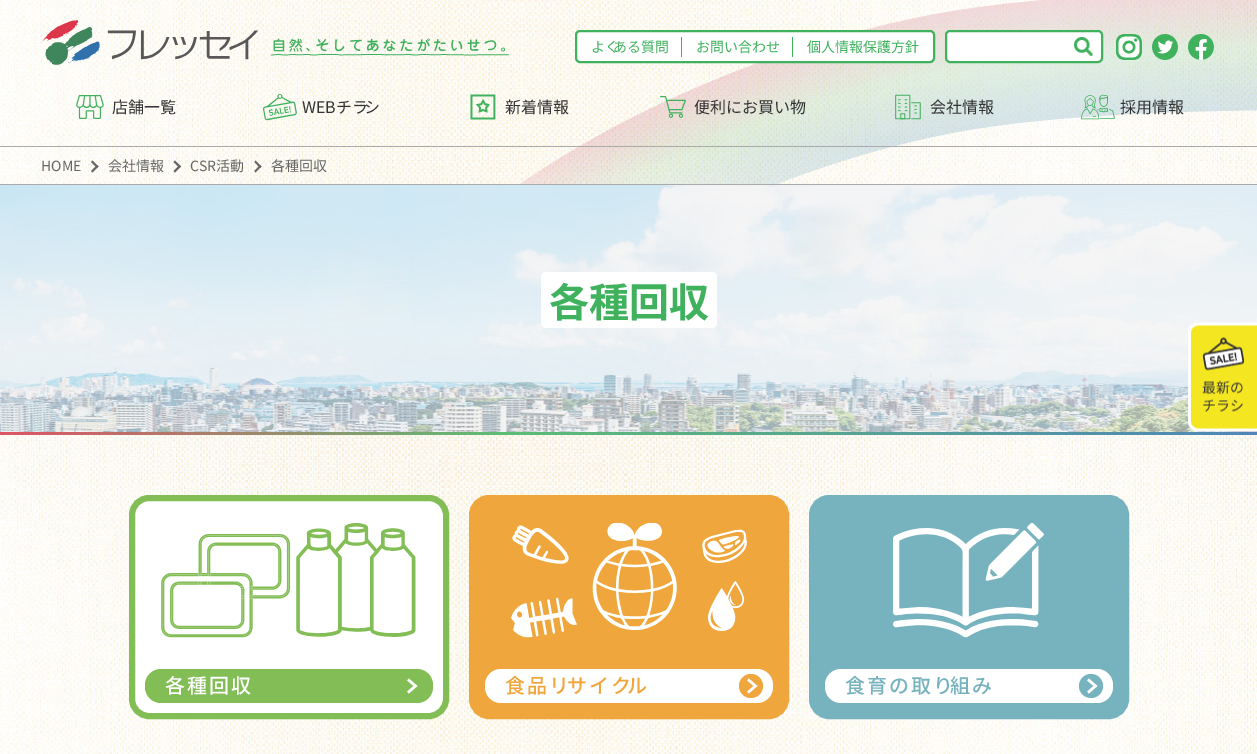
%!PS
<< /PageSize [1257 754] >> setpagedevice
/rgb { 3 { 255 div 3 1 roll } repeat setrgbcolor } def
/font { [ exch dup neg 0 0 3 -1 roll 0 0 ] selectfont } def
/text { moveto show } def
/circle { newpath 0 360 arc closepath } def
/roundrect { 5 dict begin { /r /h /w /y /x } { exch def } forall
  x r add y moveto x w add y 2 copy h add r arct x w add y h add x 1 index r arct
  x y h add x y r arct x y 2 copy exch w add exch r arct closepath end } def
/picture { 5 dict begin { /h /w /y /x /name } { exch def } forall
  gsave x y translate w h scale
  w h 8 [w 0 0 h 0 0] name (r) file false 3 colorimage grestore end } def
0 754 translate 1 -1 scale
4 setmiterlimit
255 255 255 rgb
0 0 1257 754 rectfill
(img_01.rgb) 0 0 1257 754 picture
(img_02.rgb) 520 0 737 184 picture
(img_03.rgb) 41 20 468 45 picture
576 31 358 31 4 roundrect gsave fill grestore
64 177 93 rgb
2 setlinewidth
stroke
681 37 1 20 rectfill
792 37 1 20 rectfill
255 255 255 rgb
945 30 158 33 5 roundrect fill
(img_04.rgb) 1074 37 20 19 picture
64 177 93 rgb
946 31 156 31 4 roundrect stroke
(img_05.rgb) 1116 34 26 26 picture
(img_06.rgb) 1152 34 26 26 picture
(img_07.rgb) 1188 34 26 26 picture
(img_08.rgb) 76 95 28 24 picture
(img_09.rgb) 263 94 34 27 picture
(img_10.rgb) 470 94 26 26 picture
(img_11.rgb) 660 96 26 22 picture
(img_12.rgb) 895 94 26 26 picture
(img_13.rgb) 1081 94 34 26 picture
170 170 170 rgb
0 146 1257 1 rectfill
0 184 1257 1 rectfill
102 102 102 rgb
92.5 160.5 moveto 6 6 rlineto -1.5 1.5 rlineto -6 -6 rlineto closepath fill
97 165 moveto 1.5 1.5 rlineto -6 6 rlineto -1.5 -1.5 rlineto closepath fill
175 160.5 moveto 6 6 rlineto -1.5 1.5 rlineto -6 -6 rlineto closepath fill
179.5 165 moveto 1.5 1.5 rlineto -6 6 rlineto -1.5 -1.5 rlineto closepath fill
255.5 160.5 moveto 6 6 rlineto -1.5 1.5 rlineto -5.5 -6 rlineto closepath fill
260 165 moveto 1.5 1.5 rlineto -6 6 rlineto -1 -1.5 rlineto closepath fill
(img_14.rgb) 0 185 1257 247 picture
255 255 255 rgb
541 272 176 56 5 roundrect fill
gsave 0 432 moveto 1257 0 rlineto 0 3 rlineto -1257 0 rlineto closepath clip newpath
<< /ShadingType 2 /ColorSpace /DeviceRGB /Coords [0 434 1257 433] /Extend [true true] /Function << /FunctionType 3 /Domain [0 1] /Functions [<< /FunctionType 2 /Domain [0 1] /C0 [0.878 0.329 0.396] /C1 [0.365 0.741 0.459] /N 1 >> << /FunctionType 2 /Domain [0 1] /C0 [0.365 0.741 0.459] /C1 [0.31 0.525 0.722] /N 1 >>] /Bounds [0.4] /Encode [0 1 0 1] >> >> shfill grestore
132 498 314 218 17 roundrect gsave fill grestore
131 189 86 rgb
6 setlinewidth
stroke
(img_15.rgb) 161 523 255 115 picture
145 669 288 34 16 roundrect fill
255 255 255 rgb
2.5 setlinewidth
408 692.5 moveto 7.5 -6.5 rlineto -7.5 -6.5 rlineto stroke
239 167 61 rgb
472 498 314 218 17 roundrect gsave fill grestore
6 setlinewidth
stroke
(img_16.rgb) 511 523 236 115 picture
255 255 255 rgb
485 669 288 34 16 roundrect fill
239 167 61 rgb
751 686 12 circle fill
255 255 255 rgb
2.5 setlinewidth
748 692.5 moveto 7.5 -6.5 rlineto -7.5 -6.5 rlineto stroke
119 179 190 rgb
812 498 314 218 17 roundrect gsave fill grestore
6 setlinewidth
stroke
(img_17.rgb) 893 523 151 115 picture
255 255 255 rgb
825 669 288 34 16 roundrect fill
119 179 190 rgb
1091 686 12 circle fill
255 255 255 rgb
2.5 setlinewidth
1088 692.5 moveto 7.5 -6.5 rlineto -7.5 -6.5 rlineto stroke
(img_18.rgb) 1188 322 69 110 picture
/NotoSansJP-Regular 14 font
64 177 93 rgb
(よく) 591 52 text
(ある質問) 613 52 text
(お問い合わせ) 696 52 text
(個人情報保護方針) 807 52 text
/NotoSansJP-Regular 16 font
51 51 51 rgb
(店舗一覧) 112 113 text
(WEBチラ) 302 113 text
(シ) 364 113 text
(新着情報) 505 113 text
(便利にお買い物) 694 113 text
(会社情報) 930 113 text
(採用情報) 1120 113 text
/NotoSansJP-Regular 14 font
102 102 102 rgb
(HOME) 41 171 text
(会社情報) 108 171 text
(CSR活動) 190 171 text
(各種回収) 271 171 text
/NotoSansJP-Bold 40 font
64 177 93 rgb
(各種回収) 549 317 text
/NotoSansJP-Medium 20 font
255 255 255 rgb
165 693 moveto 2 0 (各種回収) ashow
239 167 61 rgb
505 693 moveto 2 0 (食品リ) ashow
567 693 moveto 2 0 (サイク) ashow
627 693 moveto 2 0 (ル) ashow
119 179 190 rgb
845 693 moveto 2 0 (食育の取り) ashow
950 693 moveto 2 0 (組み) ashow
showpage
